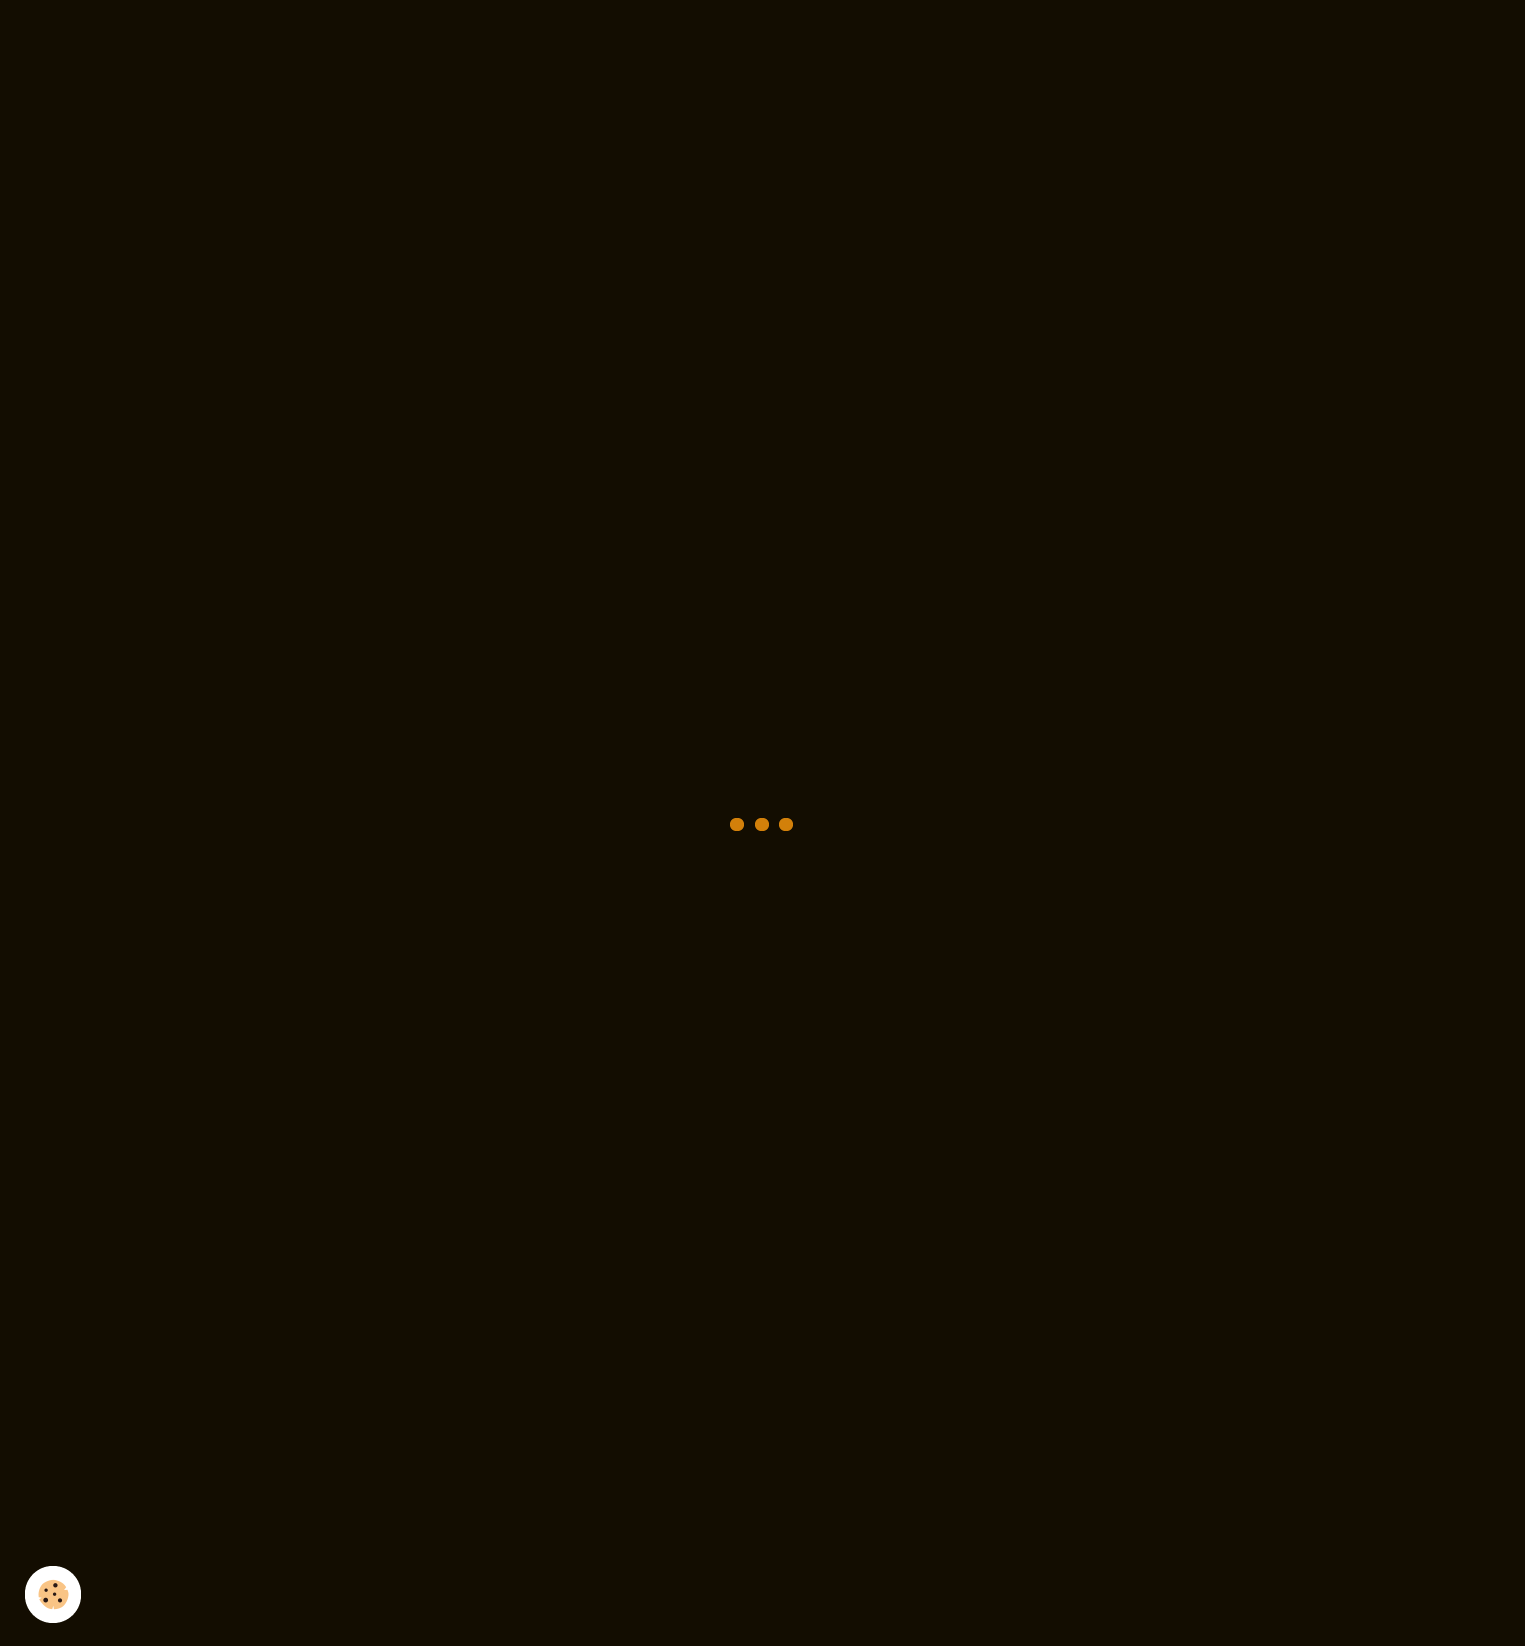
%!PS
<< /PageSize [1525 1646] >> setpagedevice
/rgb { 3 { 255 div 3 1 roll } repeat setrgbcolor } def
/roundrect { 5 dict begin { /r /h /w /y /x } { exch def } forall
  x r add y moveto x w add y 2 copy h add r arct x w add y h add x 1 index r arct
  x y h add x y r arct x y 2 copy exch w add exch r arct closepath end } def
/picture { 5 dict begin { /h /w /y /x /name } { exch def } forall
  gsave x y translate w h scale
  w h 8 [w 0 0 h 0 0] name (r) file false 3 colorimage grestore end } def
0 1646 translate 1 -1 scale
4 setmiterlimit
19 13 1 rgb
0 0 1525 1646 rectfill
(img_01.rgb) 1465 75 33 28 picture
(img_02.rgb) 44 288 1046 699 picture
(img_03.rgb) 56 1062 9 14 picture
(img_04.rgb) 68 1018 101 101 picture
(img_05.rgb) 965 1018 101 101 picture
(img_06.rgb) 1070 1062 8 14 picture
(img_07.rgb) 96 1181 31 31 picture
(img_08.rgb) 141 1184 31 25 picture
(img_09.rgb) 187 1187 28 19 picture
(img_10.rgb) 46 1232 29 27 picture
(img_11.rgb) 78 1232 29 27 picture
(img_12.rgb) 112 1232 29 27 picture
(img_13.rgb) 145 1232 28 27 picture
(img_12.rgb) 177 1232 29 27 picture
(img_14.rgb) 1152 226 66 67 picture
(img_15.rgb) 1235 226 67 67 picture
(img_16.rgb) 1319 226 68 67 picture
(img_17.rgb) 1404 226 67 67 picture
(img_18.rgb) 1152 311 66 66 picture
(img_19.rgb) 1235 311 67 66 picture
(img_20.rgb) 1319 311 68 66 picture
(img_21.rgb) 1404 311 67 66 picture
211 128 10 rgb
730 818 14 13 6.5 roundrect fill
210 128 10 rgb
755 818 14 13 6.5 roundrect fill
779 818 14 13 6.5 roundrect fill
255 255 255 rgb
25 1566 56 57 28 roundrect fill
(img_22.rgb) 38 1579 31 31 picture
showpage
